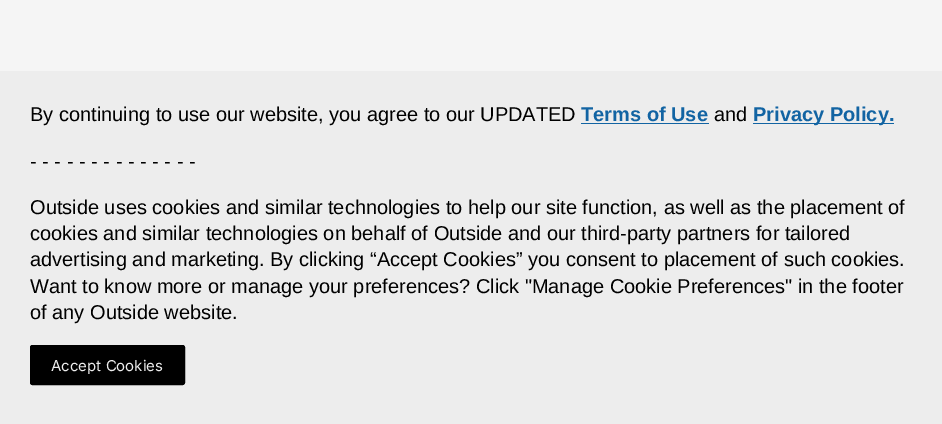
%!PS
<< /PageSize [942 424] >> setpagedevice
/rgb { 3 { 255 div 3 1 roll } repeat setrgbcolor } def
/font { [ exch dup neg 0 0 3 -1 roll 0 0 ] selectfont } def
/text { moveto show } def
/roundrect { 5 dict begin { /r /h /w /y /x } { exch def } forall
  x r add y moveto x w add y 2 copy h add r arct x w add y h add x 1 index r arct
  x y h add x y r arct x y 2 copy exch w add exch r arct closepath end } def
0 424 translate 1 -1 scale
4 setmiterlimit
245 245 245 rgb
0 0 942 424 rectfill
237 237 237 rgb
0 71 942 353 rectfill
18 100 163 rgb
581 123 128 1 rectfill
753 123 141 1 rectfill
0 0 0 rgb
30.5 345.5 154 39 2 roundrect gsave fill grestore
stroke
/LiberationSans-Regular 20 font
(By continuing to use our website, you agree to our UPDATED) 30 121 text
/LiberationSans-Bold 20 font
18 100 163 rgb
(Terms of Use) 581 121 text
/LiberationSans-Regular 20 font
0 0 0 rgb
(and) 714 121 text
/LiberationSans-Bold 20 font
18 100 163 rgb
(Privacy Policy.) 753 121 text
/LiberationSans-Regular 20 font
0 0 0 rgb
(- - - - - - - - - - - - - -) 30 168 text
(Outside uses cookies and similar technologies to help our site function, as well as the placement of) 30 214 text
(cookies and similar technologies on behalf of Outside and our third-party partners for tailored) 30 240 text
(advertising and marketing. By clicking “Accept Cookies” you consent to placement of such cookies.) 30 266 text
(Want to know more or manage your preferences? Click "Manage Cookie Preferences" in the footer) 30 293 text
(of any Outside website.) 30 319 text
/Inter-Regular 15 font
237 237 237 rgb
(Accept Cookies) 51 371 text
showpage
